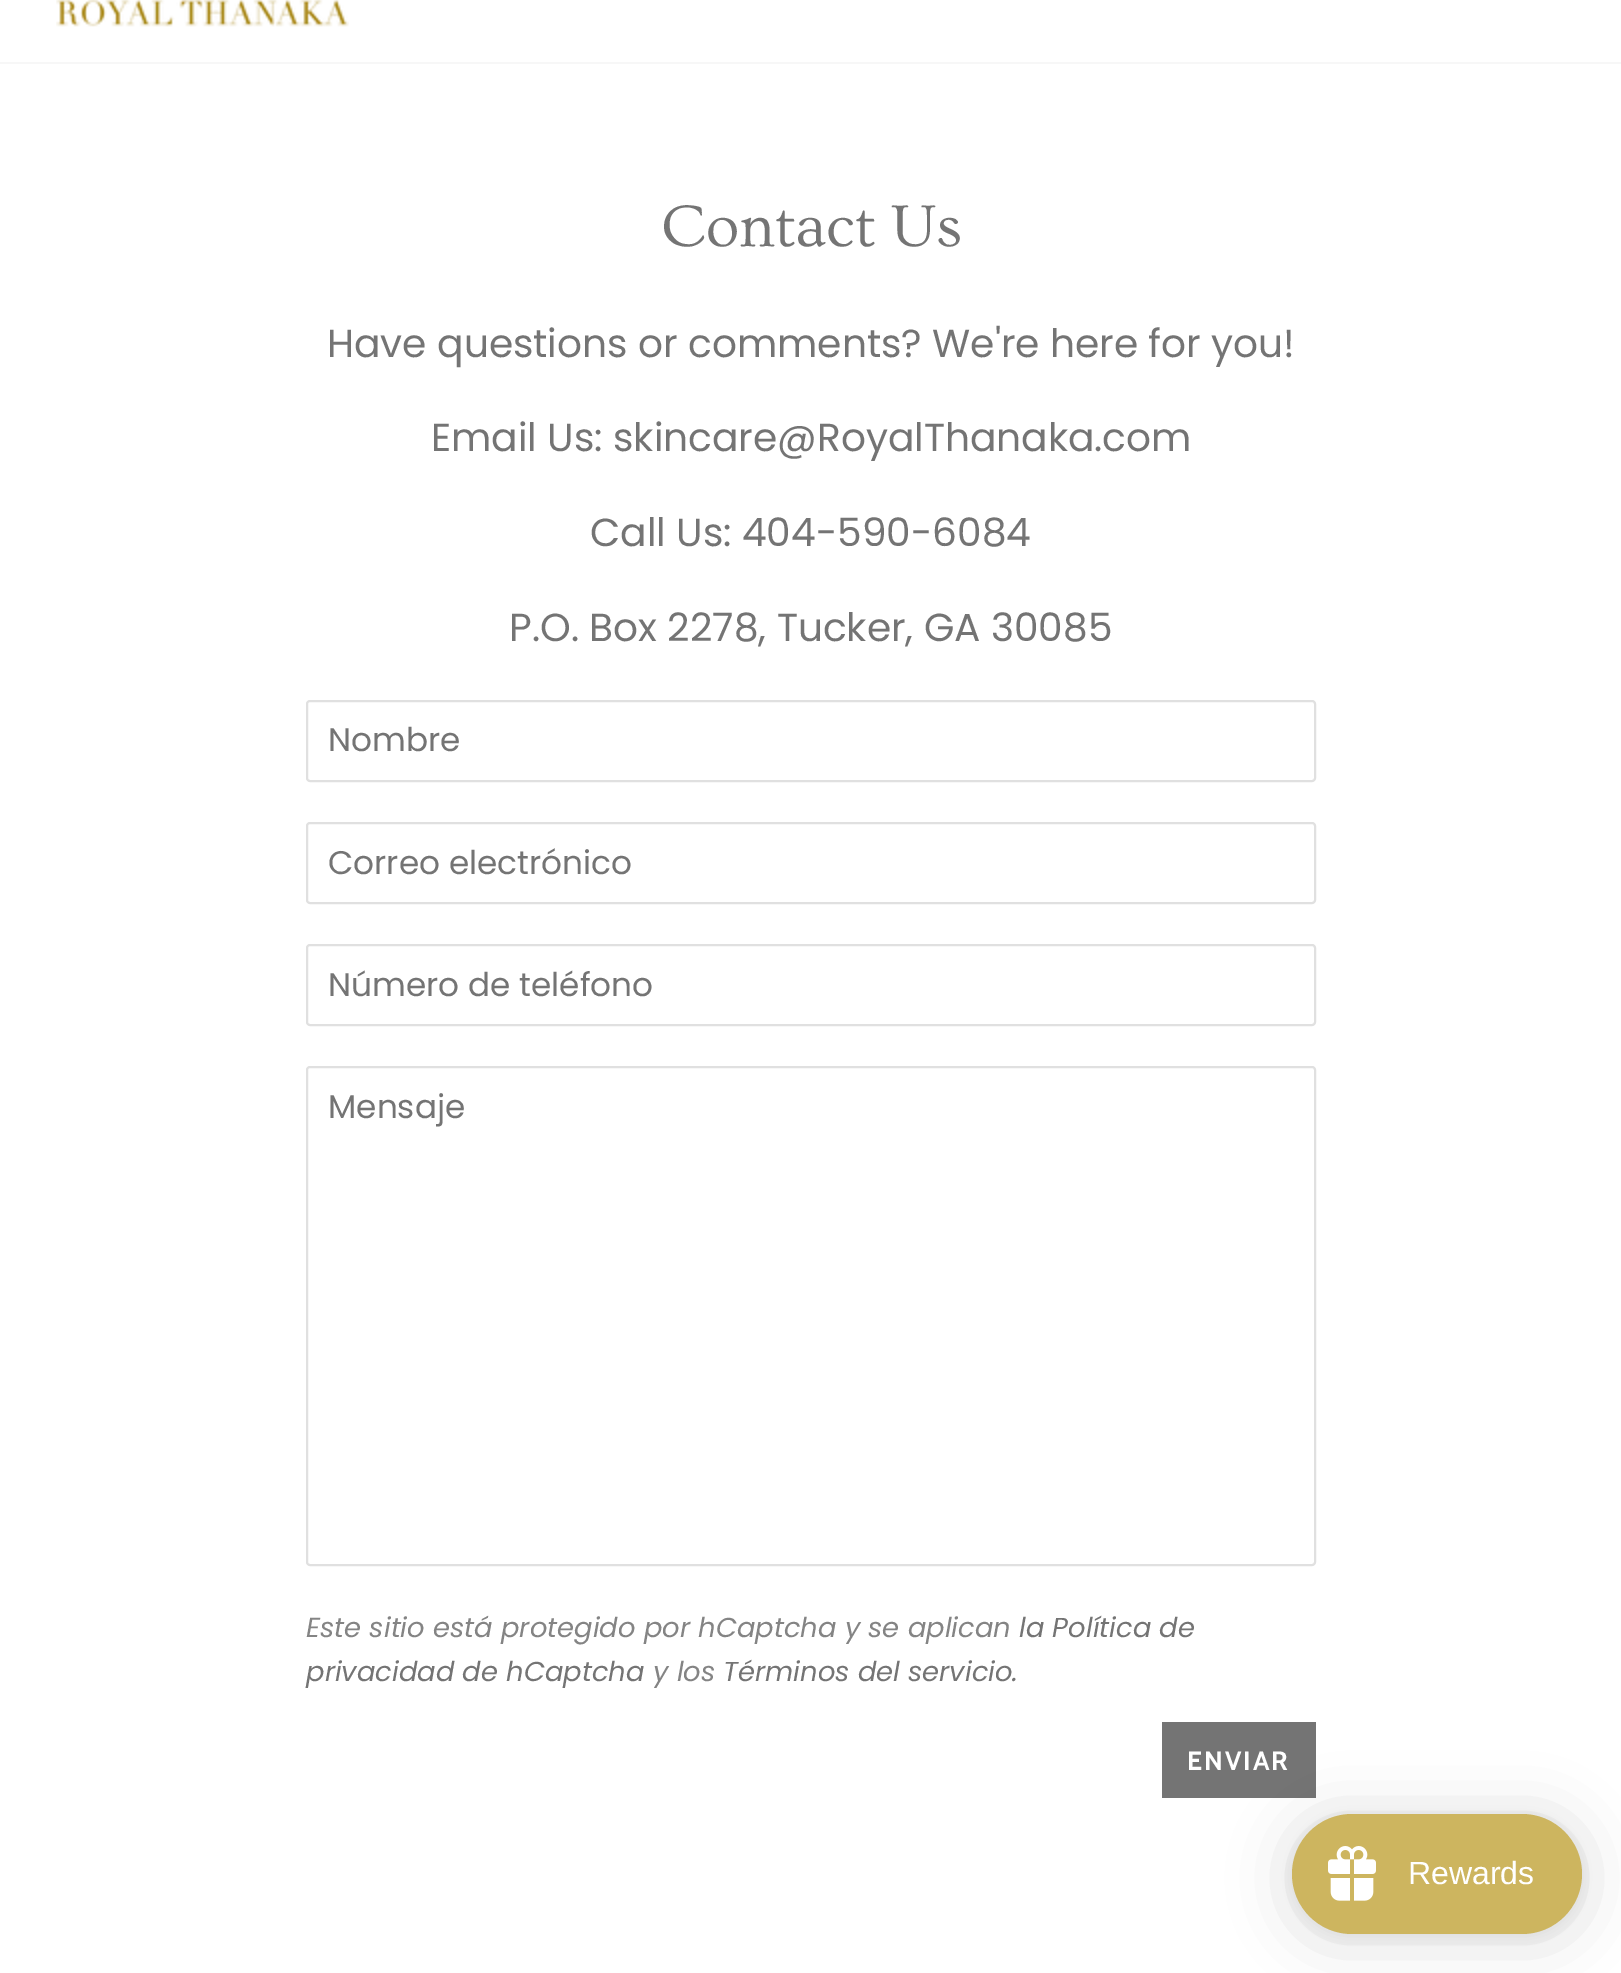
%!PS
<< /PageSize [1621 1973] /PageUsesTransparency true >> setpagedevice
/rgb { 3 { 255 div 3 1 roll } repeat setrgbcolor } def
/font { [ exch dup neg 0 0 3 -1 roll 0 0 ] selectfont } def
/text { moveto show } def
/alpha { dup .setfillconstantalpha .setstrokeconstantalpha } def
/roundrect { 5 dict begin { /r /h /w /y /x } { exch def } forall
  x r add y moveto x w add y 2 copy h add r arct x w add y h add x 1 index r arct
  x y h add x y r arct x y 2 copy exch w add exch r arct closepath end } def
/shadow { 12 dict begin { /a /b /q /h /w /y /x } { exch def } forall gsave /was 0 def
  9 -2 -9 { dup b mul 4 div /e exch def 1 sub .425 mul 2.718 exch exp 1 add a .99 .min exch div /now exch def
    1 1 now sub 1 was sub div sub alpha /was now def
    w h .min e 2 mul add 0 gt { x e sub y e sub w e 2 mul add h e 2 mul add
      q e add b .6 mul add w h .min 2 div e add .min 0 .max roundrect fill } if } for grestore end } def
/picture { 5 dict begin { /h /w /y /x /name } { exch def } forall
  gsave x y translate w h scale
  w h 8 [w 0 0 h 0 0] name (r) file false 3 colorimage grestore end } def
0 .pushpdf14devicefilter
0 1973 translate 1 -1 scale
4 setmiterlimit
255 255 255 rgb
0 0 1621 1973 rectfill
247 247 247 rgb
0 62 1621 2 rectfill
(img_01.rgb) 56 0 293 27 picture
224 224 224 rgb
2 setlinewidth
307 701 1008 80 3 roundrect stroke
307 823 1008 80 3 roundrect stroke
307 945 1008 80 3 roundrect stroke
307 1067 1008 498 3 roundrect stroke
116 116 116 rgb
1162 1722 154 76 rectfill
0 0 0 rgb
1292 1818 290 120 60 30 0.15 shadow
1292 1816 290 120 60 6 0.05 shadow
205 181 95 rgb
1292 1814 290 120 60 roundrect fill
(img_02.rgb) 1328 1846 48 55 picture
/Ovo-Regular 61.5 font
116 116 116 rgb
(Contact Us) 661 246 text
/Poppins-Regular 39.1 font
(Have questions or comments? We're here for you!) 327 357 text
(Email Us: skincare@RoyalThanaka.com) 431 451 text
(Call Us: 404-590-6084) 590 546 text
(P.O. Box 2278, Tucker, GA 30085) 509 641 text
/Poppins-Regular 32.75 font
(Nombre) 328 751 text
(Correo electrónico) 328 874 text
(Número de teléfono) 328 996 text
(Mensaje) 328 1118 text
/Poppins-Italic 27.4 font
132 132 132 rgb
(Este sitio está protegido por hCaptcha y se aplican) 306 1637 text
116 116 116 rgb
(la Política de) 1019 1637 text
(privacidad de hCaptcha) 306 1681 text
132 132 132 rgb
(y los) 653 1681 text
116 116 116 rgb
(Términos del servicio.) 723 1681 text
/Cabin-Bold 26.5 font
255 255 255 rgb
1187 1770 moveto 2 0 (ENVIAR) ashow
/LiberationSans-Regular 32 font
(Rewards) 1408 1884 text
.poppdf14devicefilter showpage
